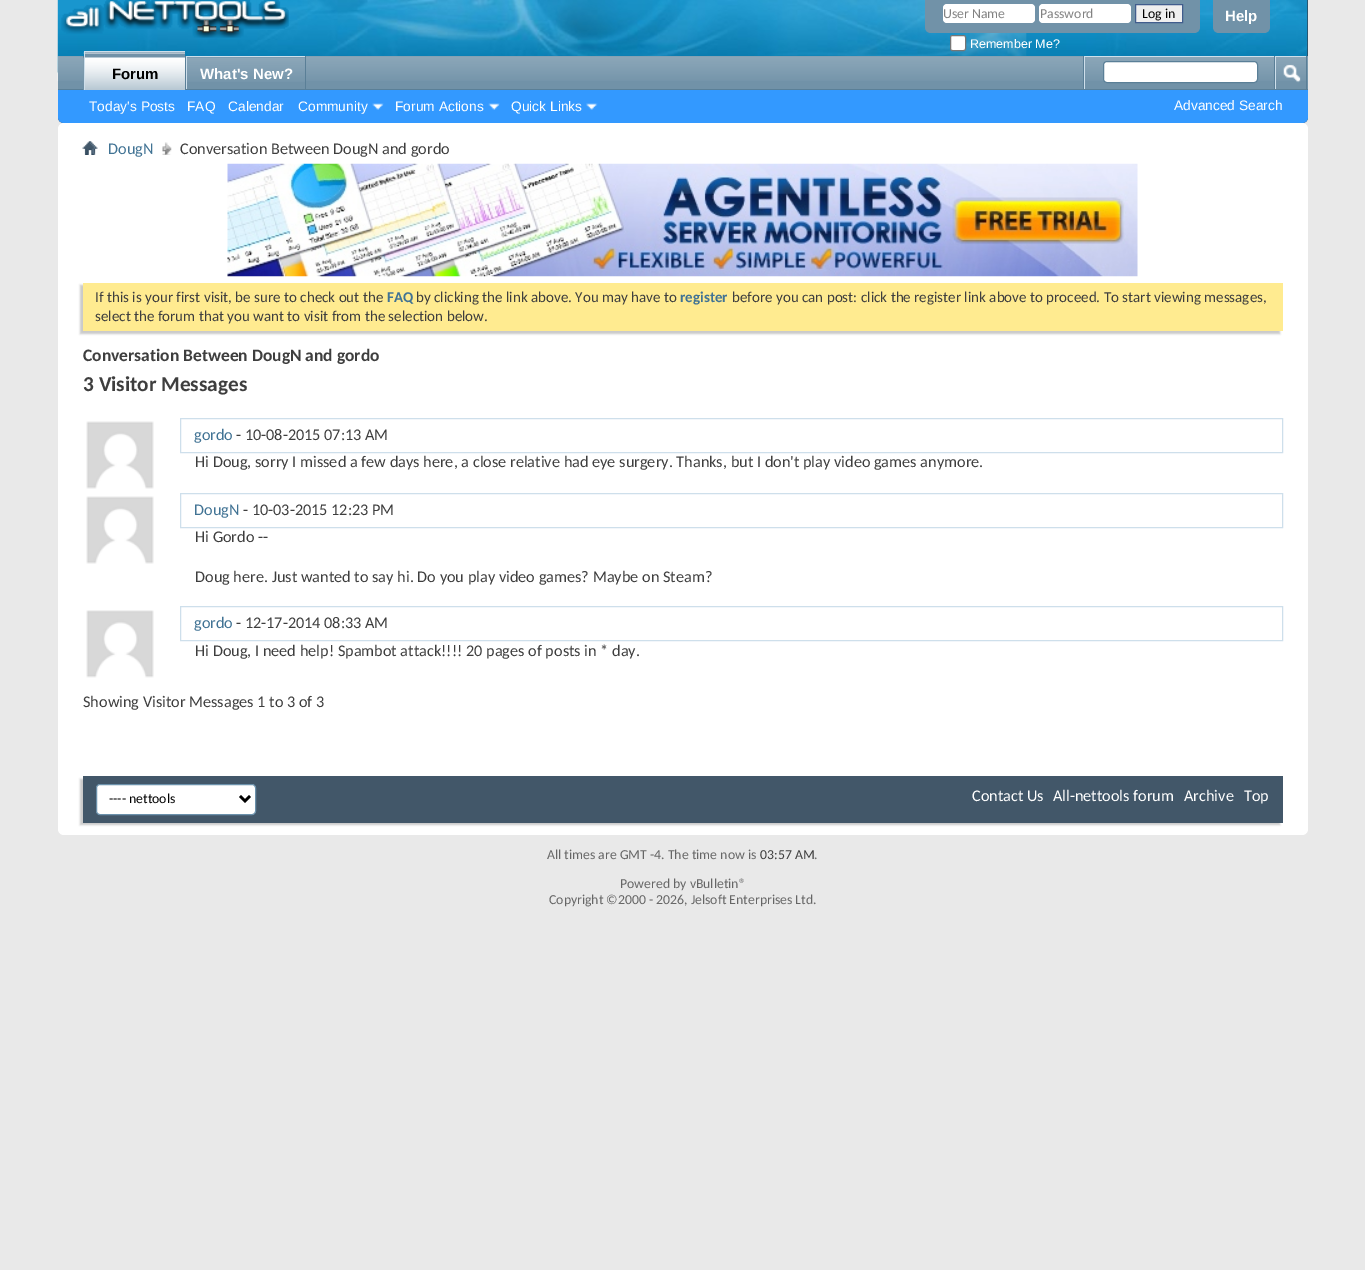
%!PS
<< /PageSize [1365 1270] /PageUsesTransparency true >> setpagedevice
/rgb { 3 { 255 div 3 1 roll } repeat setrgbcolor } def
/font { [ exch dup neg 0 0 3 -1 roll 0 0 ] selectfont } def
/text { moveto show } def
/alpha { dup .setfillconstantalpha .setstrokeconstantalpha } def
/roundrect { 5 dict begin { /r /h /w /y /x } { exch def } forall
  x r add y moveto x w add y 2 copy h add r arct x w add y h add x 1 index r arct
  x y h add x y r arct x y 2 copy exch w add exch r arct closepath end } def
/shadow { 12 dict begin { /a /b /q /h /w /y /x } { exch def } forall gsave /was 0 def
  9 -2 -9 { dup b mul 4 div /e exch def 1 sub .425 mul 2.718 exch exp 1 add a .99 .min exch div /now exch def
    1 1 now sub 1 was sub div sub alpha /was now def
    w h .min e 2 mul add 0 gt { x e sub y e sub w e 2 mul add h e 2 mul add
      q e add b .6 mul add w h .min 2 div e add .min 0 .max roundrect fill } if } for grestore end } def
/picture { 5 dict begin { /h /w /y /x /name } { exch def } forall
  gsave x y translate w h scale
  w h 8 [w 0 0 h 0 0] name (r) file false 3 colorimage grestore end } def
0 .pushpdf14devicefilter
0 1270 translate 1 -1 scale
4 setmiterlimit
233 233 233 rgb
0 0 1365 1270 rectfill
47 68 86 rgb
58 0 moveto 1250 0 rlineto 0 117 rlineto 0 3.5 -2.5 6 -6 6 rcurveto -1238 0 rlineto -3.5 0 -6 -2.5 -6 -6 rcurveto closepath fill
(img_01.rgb) 57 0 1251 82 picture
(img_02.rgb) 61 0 228 38 picture
113 146 168 rgb
925 0 moveto 275 0 rlineto 0 27 rlineto 0 3.5 -2.5 6 -6 6 rcurveto -263 0 rlineto -3.5 0 -6 -2.5 -6 -6 rcurveto closepath fill
255 255 255 rgb
943 4 92 19 4 roundrect fill
1039 4 92 19 4 roundrect fill
239 239 239 rgb
1135.5 4.5 moveto 47 0 rlineto 0 18 rlineto -47 0 rlineto closepath gsave fill grestore
65 93 141 rgb
stroke
255 255 255 rgb
950.5 35.5 15 15 2 roundrect gsave fill grestore
118 118 118 rgb
stroke
113 146 168 rgb
1213 0 moveto 57 0 rlineto 0 27 rlineto 0 3.5 -2.5 6 -6 6 rcurveto -45 0 rlineto -3.5 0 -6 -2.5 -6 -6 rcurveto closepath fill
51 153 255 rgb
58 56 moveto 1250 0 rlineto 0 61 rlineto 0 3.5 -2.5 6 -6 6 rcurveto -1238 0 rlineto -3.5 0 -6 -2.5 -6 -6 rcurveto closepath fill
113 146 168 rgb
58 56 1250 33 rectfill
(img_03.rgb) 57 56 1251 25 picture
90 127 151 rgb
185 56 1 33 rectfill
83 56 1 33 rectfill
305 56 1 34 rectfill
206 223 235 rgb
186 56 119 1 rectfill
186 56 1 34 rectfill
90 127 151 rgb
58 89 1250 1 rectfill
113 146 168 rgb
85 52 100 38 rectfill
(img_04.rgb) 83 52 102 38 picture
206 223 235 rgb
84 51 101 1 rectfill
84 51 1 39 rectfill
(img_05.rgb) 372 103 12 7 picture
(img_06.rgb) 488 103 12 7 picture
(img_07.rgb) 586 103 12 7 picture
113 146 168 rgb
187 57 118 24 rectfill
(img_08.rgb) 187 57 118 25 picture
90 127 151 rgb
1083 56 1 33 rectfill
206 223 235 rgb
1084 56 190 1 rectfill
1084 56 1 33 rectfill
255 255 255 rgb
1103.5 61.5 154 21 3.5 roundrect gsave fill grestore
90 127 151 rgb
stroke
1306 56 1 33 rectfill
1274 56 1 33 rectfill
206 223 235 rgb
1275 56 31 1 rectfill
1275 56 1 33 rectfill
(img_09.rgb) 1283 64 18 19 picture
255 255 255 rgb
58 123 1250 712 6 roundrect fill
(img_10.rgb) 82 141 16 14 picture
(img_11.rgb) 162 142 10 13 picture
(img_12.rgb) 227 163 911 114 picture
200 200 200 rgb
80 285 1200 49 0 1 1 shadow
255 235 144 rgb
83 283 1200 48 rectfill
(img_13.rgb) 86 421 68 68 picture
206 223 235 rgb
180.5 418.5 1102 34 rectstroke
(img_13.rgb) 86 496 68 68 picture
180.5 493.5 1102 34 rectstroke
(img_14.rgb) 86 610 68 68 picture
180.5 606.5 1102 34 rectstroke
200 200 200 rgb
80 779 1200 46 0 1 1 shadow
66 87 105 rgb
83 776 1200 47 rectfill
255 255 255 rgb
96.5 784.5 159 30 3.5 roundrect gsave fill grestore
107 145 171 rgb
stroke
0 0 0 rgb
2.5 setlinewidth
240 796 moveto 5 5 rlineto 5 -5 rlineto stroke
/Carlito-Regular 13.75 font
130 130 130 rgb
(User Name) 943 18 text
(Password) 1040 18 text
0 0 0 rgb
(Log in) 1142 18 text
/LiberationSans-Regular 12.5 font
255 255 255 rgb
(Remember Me?) 970 48 text
/LiberationSans-Bold 15 font
(Help) 1225 21 text
0 0 0 rgb
(Forum) 112 79 text
/LiberationSans-Regular 13.75 font
255 255 255 rgb
(Today's Posts) 89 111 text
(FAQ) 187 111 text
(Calendar) 228 111 text
(Community) 298 111 text
(Forum Actions) 395 111 text
(Quick Links) 511 111 text
/LiberationSans-Bold 15 font
(What's New?) 200 79 text
/LiberationSans-Regular 13.75 font
(Advanced Search) 1174 110 text
/Carlito-Regular 16.25 font
65 115 148 rgb
(DougN) 108 154 text
62 62 62 rgb
(Conversation Between DougN and gordo) 180 154 text
/Carlito-Regular 15 font
(If this is your first visit, be sure to check out the) 95 302 text
/Carlito-Bold 15 font
65 115 148 rgb
(FAQ) 387 302 text
/Carlito-Regular 15 font
62 62 62 rgb
(by clicking the link above. You may have to) 416 302 text
/Carlito-Bold 15 font
65 115 148 rgb
(register) 680 302 text
/Carlito-Regular 15 font
62 62 62 rgb
(before you can post: click the register link above to proceed. To start viewing messages,) 732 302 text
(select the forum that you want to visit from the selection below.) 95 321 text
/Carlito-Bold 17.5 font
(Conversation Between DougN and gordo) 83 361 text
/Carlito-Bold 21.25 font
(3 Visitor Messages) 83 391 text
/Carlito-Regular 16.25 font
65 115 148 rgb
(gordo) 194 440 text
62 62 62 rgb
(- 10-08-2015 07:13 AM) 236 440 text
(Hi Doug, sorry I missed a few days here, a close relative had eye surgery. Thanks, but I don't play video games anymore.) 195 467 text
65 115 148 rgb
(DougN) 194 515 text
62 62 62 rgb
(- 10-03-2015 12:23 PM) 243 515 text
(Hi Gordo --) 195 542 text
(Doug here. Just wanted to say hi. Do you play video games? Maybe on Steam?) 195 582 text
65 115 148 rgb
(gordo) 194 628 text
62 62 62 rgb
(- 12-17-2014 08:33 AM) 236 628 text
(Hi Doug, I need help! Spambot attack!!!! 20 pages of posts in * day.) 195 656 text
(Showing Visitor Messages 1 to 3 of 3) 83 707 text
/Carlito-Regular 13.75 font
0 0 0 rgb
(---- nettools) 109 803 text
/Carlito-Regular 16.25 font
255 255 255 rgb
(Contact Us) 972 801 text
(All-nettools forum) 1053 801 text
(Archive) 1184 801 text
(Top) 1244 801 text
/Carlito-Regular 13.75 font
102 102 102 rgb
(All times are GMT -4. The time now is) 547 859 text
62 62 62 rgb
(03:57 AM) 760 859 text
102 102 102 rgb
(.) 814 859 text
(Powered by vBulletin®) 620 888 text
(Copyright ©2000 - 2026, Jelsoft Enterprises Ltd.) 549 904 text
.poppdf14devicefilter showpage
